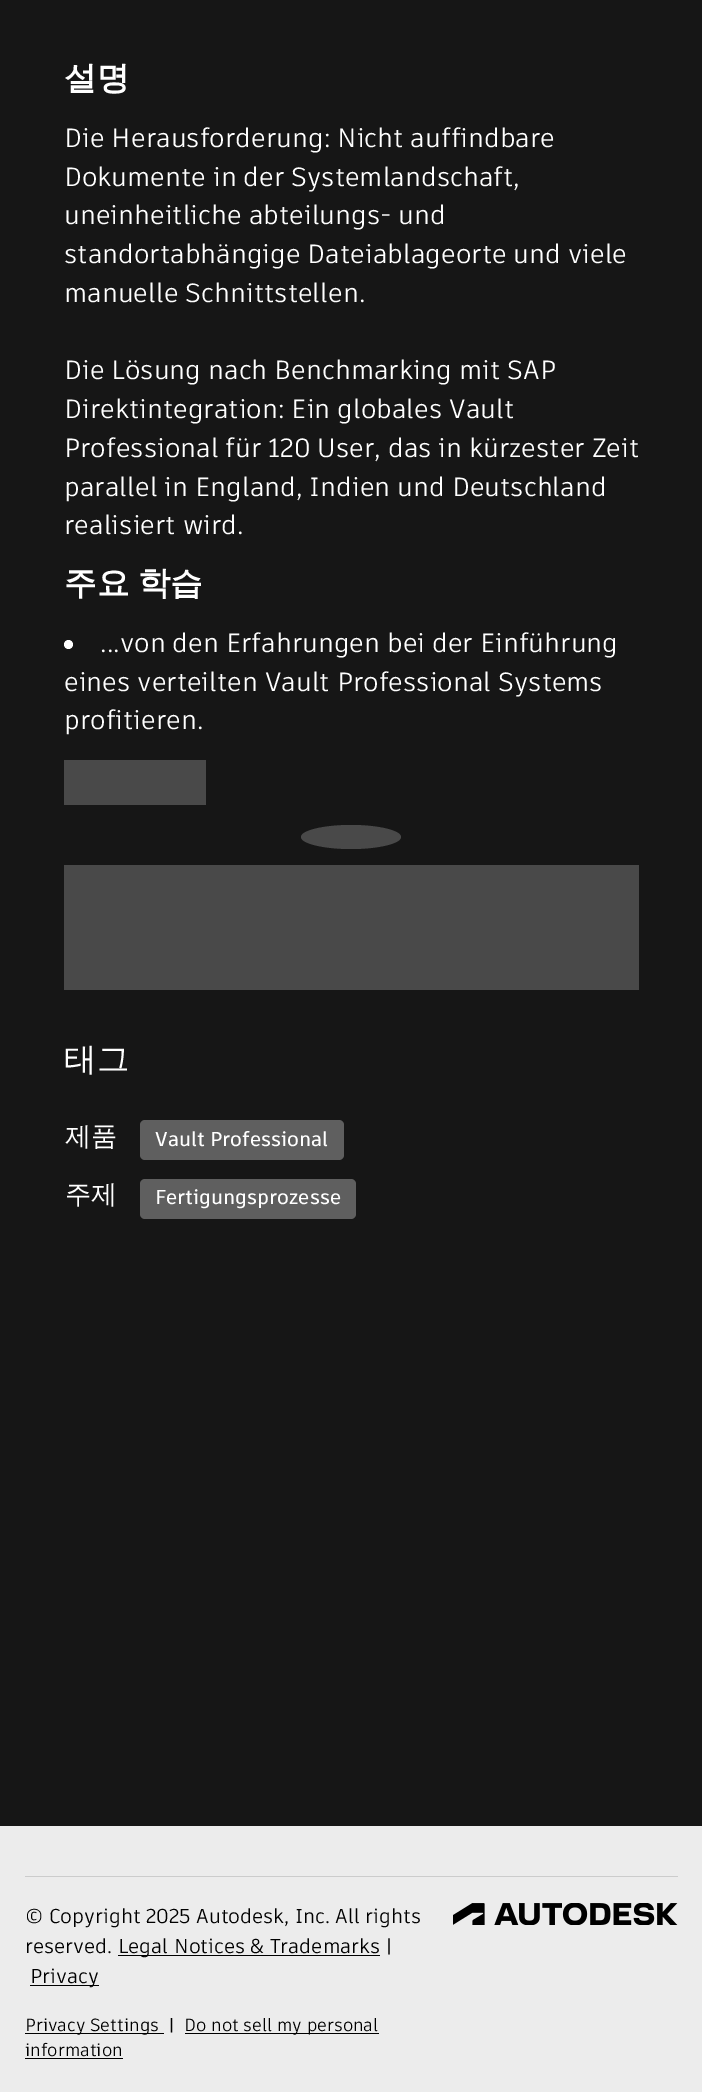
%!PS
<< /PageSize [702 2092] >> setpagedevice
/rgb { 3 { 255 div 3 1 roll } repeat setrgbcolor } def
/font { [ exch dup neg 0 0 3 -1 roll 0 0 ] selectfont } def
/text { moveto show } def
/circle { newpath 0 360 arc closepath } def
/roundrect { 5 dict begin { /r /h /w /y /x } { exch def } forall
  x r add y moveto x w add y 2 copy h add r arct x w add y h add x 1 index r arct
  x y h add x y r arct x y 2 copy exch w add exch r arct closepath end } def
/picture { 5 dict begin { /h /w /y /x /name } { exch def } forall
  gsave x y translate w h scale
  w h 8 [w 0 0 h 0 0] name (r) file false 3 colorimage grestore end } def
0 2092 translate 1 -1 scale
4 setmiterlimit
22 22 22 rgb
0 0 702 2092 rectfill
255 255 255 rgb
68.5 644.5 4.5 circle fill
73 73 73 rgb
64 760 142 45 rectfill
351 825 moveto 27.5 0 50 5.5 50 12 rcurveto 0 6.5 -22.5 12 -50 12 rcurveto -27.5 0 -50 -5.5 -50 -12 rcurveto 0 -6.5 22.5 -12 50 -12 rcurveto closepath fill
64 865 575 125 rectfill
95 95 95 rgb
140 1120 204 40 5 roundrect fill
140 1179 216 40 5 roundrect fill
236 236 236 rgb
0 1826 702 266 rectfill
204 204 204 rgb
25 1876 653 1 rectfill
0 0 0 rgb
118 1955 262 1 rectfill
30 1985 69 1 rectfill
25 2033 139 1 rectfill
185 2033 194 1 rectfill
25 2058 98 1 rectfill
(img_01.rgb) 453 1903 225 22 picture
/WenQuanYiZenHei-Bold 32.5 font
255 255 255 rgb
(설명) 64 89 text
/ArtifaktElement-Regular 26.25 font
(Die Herausforderung: Nicht auffindbare) 64 147 text
(Dokumente in der Systemlandschaft,) 64 186 text
(uneinheitliche abteilungs- und) 64 224 text
(standortabhängige Dateiablageorte und viele) 64 263 text
(manuelle Schnittstellen.) 64 302 text
(Die Lösung nach Benchmarking mit SAP) 64 379 text
(Direktintegration: Ein globales Vault) 64 418 text
(Professional für 120 User, das in kürzester Zeit) 64 457 text
(parallel in England, Indien und Deutschland) 64 496 text
(realisiert wird.) 64 534 text
/WenQuanYiZenHei-Bold 32.5 font
64 594 moveto -1 0 32 (주요 학습) widthshow
/ArtifaktElement-Regular 26.25 font
(...von den Erfahrungen bei der Einführung) 100 652 text
(eines verteilten Vault Professional Systems) 64 691 text
(profitieren.) 64 729 text
/WenQuanYiZenHei-Medium 32.5 font
(태그) 64 1070 text
/WenQuanYiZenHei-Medium 26.25 font
(제품) 65 1145 text
/ArtifaktElement-SemiBold 20 font
(Vault Professional) 155 1146 text
/WenQuanYiZenHei-Medium 26.25 font
(주제) 65 1203 text
/ArtifaktElement-SemiBold 20 font
(Fertigungsprozesse) 155 1204 text
/ArtifaktElement-Regular 20 font
0 0 0 rgb
(© Copyright 2025 Autodesk, Inc. All rights) 25 1923 text
(reserved.) 25 1953 text
(Legal Notices & Trademarks |) 118 1953 text
(Privacy) 30 1983 text
/ArtifaktElement-Regular 17.5 font
(Privacy Settings) 25 2031 text
(|) 168 2031 text
(Do not sell my personal) 184 2031 text
(information) 25 2056 text
showpage
